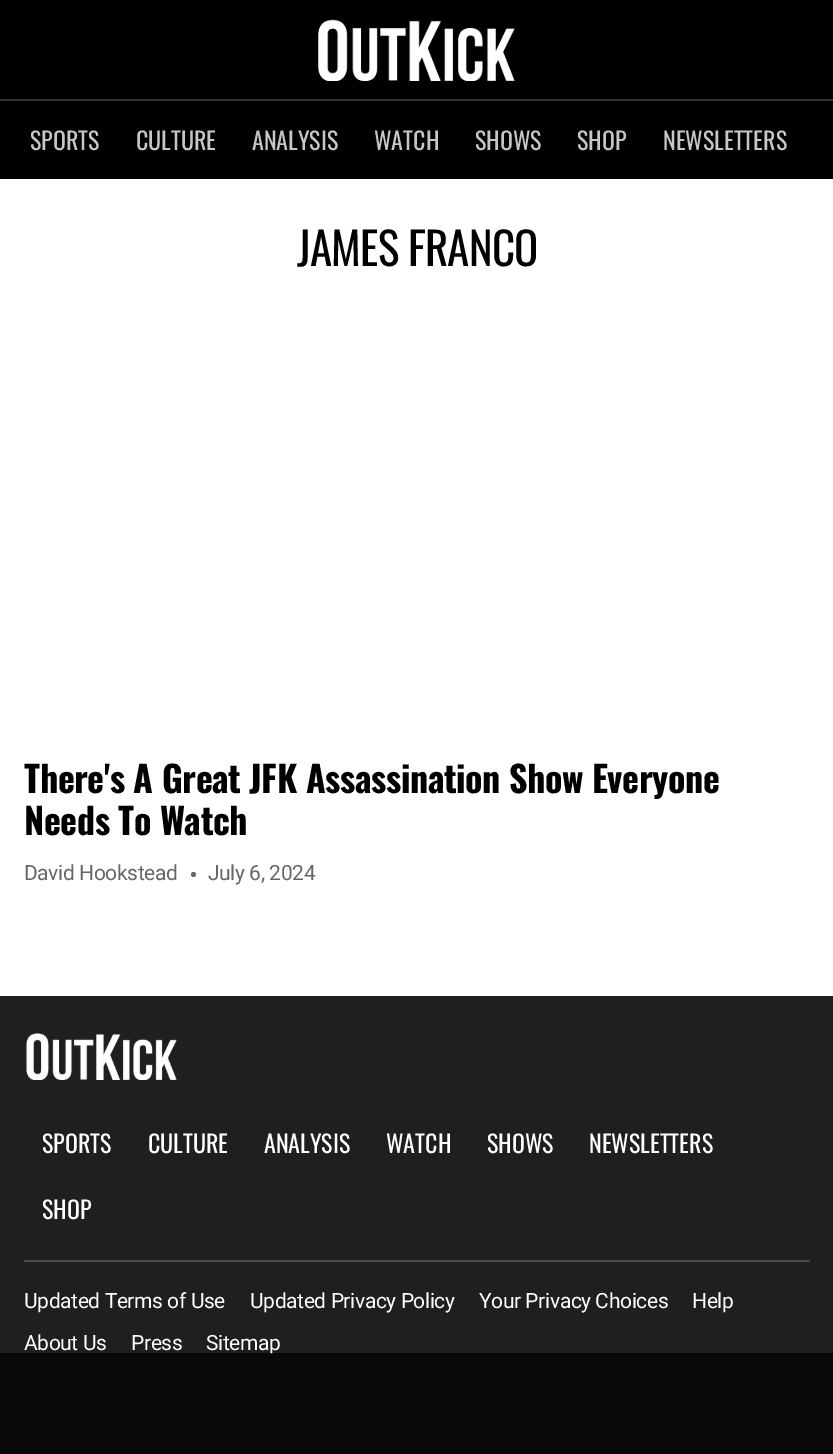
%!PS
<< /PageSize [833 1454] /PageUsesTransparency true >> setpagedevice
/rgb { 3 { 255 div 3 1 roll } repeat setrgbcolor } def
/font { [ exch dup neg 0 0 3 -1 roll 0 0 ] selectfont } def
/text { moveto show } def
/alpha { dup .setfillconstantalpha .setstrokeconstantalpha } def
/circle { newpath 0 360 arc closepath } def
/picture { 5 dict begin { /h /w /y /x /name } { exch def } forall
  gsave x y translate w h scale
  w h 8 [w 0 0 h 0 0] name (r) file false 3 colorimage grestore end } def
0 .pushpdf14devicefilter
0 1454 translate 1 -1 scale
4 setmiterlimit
255 255 255 rgb
0 0 833 1454 rectfill
0 0 0 rgb
0 0 833 179 rectfill
(img_01.rgb) 318 19 197 62 picture
51 51 51 rgb
0 99 833 2 rectfill
102 102 102 rgb
193.5 874.5 2.5 circle fill
31 31 31 rgb
0 996 833 458 rectfill
(img_02.rgb) 26 1033 151 47 picture
76 76 76 rgb
24 1260 786 2 rectfill
/Oswald-Regular 24 font
199 199 199 rgb
(SPORTS) 30 150 text
(CULTURE) 136 150 text
(ANALYSIS) 252 150 text
(WATCH) 374 150 text
(SHOWS) 475 150 text
(SHOP) 577 150 text
(NEWSLETTERS) 663 150 text
/Oswald-Regular 45 font
0 0 0 rgb
297 266 moveto -0.75 0 (JAMES FRANCO) ashow
/Oswald-Bold 36 font
24 793 moveto -0.4 0 (There's A Great JFK Assassination Show Everyone) ashow
24 835 moveto -0.4 0 (Needs To Watch) ashow
/Roboto-Regular 21 font
102 102 102 rgb
24 880 moveto -0.4 0 (David Hookstead) ashow
208 880 moveto -0.4 0 (July 6, 2024) ashow
/Oswald-Regular 24 font
255 255 255 rgb
(SPORTS) 42 1153 text
(CULTURE) 148 1153 text
(ANALYSIS) 264 1153 text
(WATCH) 386 1153 text
(SHOWS) 487 1153 text
(NEWSLETTERS) 589 1153 text
(SHOP) 42 1219 text
/Roboto-Regular 21 font
24 1308 moveto -0.4 0 (Updated Terms of Use) ashow
250 1308 moveto -0.4 0 (Updated Privacy Policy) ashow
479 1308 moveto -0.4 0 (Your Privacy Choices) ashow
692 1308 moveto -0.4 0 (Help) ashow
24 1350 moveto -0.4 0 (About Us) ashow
131 1350 moveto -0.4 0 (Press) ashow
206 1350 moveto -0.4 0 (Sitemap) ashow
0.75 alpha
0 0 0 rgb
0 1353 833 101 rectfill
.poppdf14devicefilter showpage
